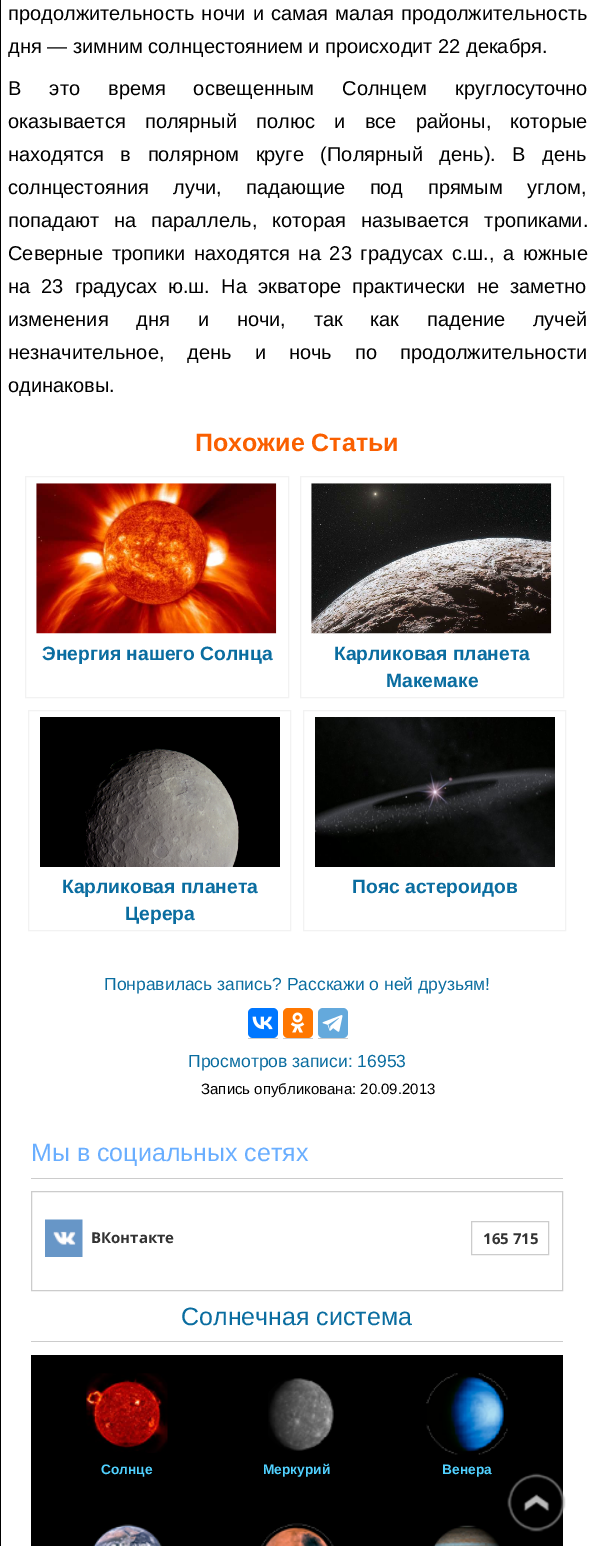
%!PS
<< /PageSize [593 1546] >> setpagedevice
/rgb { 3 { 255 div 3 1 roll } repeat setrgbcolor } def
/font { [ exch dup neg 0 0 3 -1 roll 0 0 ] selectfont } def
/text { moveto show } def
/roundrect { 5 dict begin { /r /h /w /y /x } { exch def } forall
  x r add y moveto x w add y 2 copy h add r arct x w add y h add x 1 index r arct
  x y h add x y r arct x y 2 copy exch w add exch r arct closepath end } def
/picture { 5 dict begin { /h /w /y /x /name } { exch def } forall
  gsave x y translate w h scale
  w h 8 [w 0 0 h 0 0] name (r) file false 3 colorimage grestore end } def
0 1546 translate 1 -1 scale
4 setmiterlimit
255 255 255 rgb
0 0 593 1546 rectfill
0 0 0 rgb
0 0 1 1546 rectfill
242 242 242 rgb
25.5 476.5 263 221 rectstroke
(img_01.rgb) 36 483 241 151 picture
300.5 476.5 263 221 rectstroke
(img_02.rgb) 311 483 241 151 picture
28.5 710.5 262 220 rectstroke
(img_03.rgb) 40 717 240 150 picture
303.5 710.5 262 220 rectstroke
(img_04.rgb) 315 717 240 150 picture
204 204 204 rgb
248 1038 30 1 rectfill
0 119 255 rgb
248 1008 30 30 5 roundrect fill
(img_05.rgb) 252 1016 21 14 picture
204 204 204 rgb
283 1038 30 1 rectfill
255 119 0 rgb
283 1008 30 30 5 roundrect fill
(img_06.rgb) 290 1012 15 21 picture
204 204 204 rgb
318 1038 30 1 rectfill
100 169 220 rgb
318 1008 30 30 5 roundrect fill
(img_07.rgb) 322 1015 21 17 picture
204 204 204 rgb
31 1178 532 1 rectfill
31.5 1191.5 531 99 rectstroke
(img_08.rgb) 45 1219 38 38 picture
471.5 1221.5 77 33 rectstroke
31 1341 532 1 rectfill
0 0 0 rgb
31 1355 532 191 rectfill
(img_09.rgb) 86 1373 82 80 picture
(img_10.rgb) 268 1378 66 73 picture
(img_11.rgb) 426 1373 82 82 picture
(img_12.rgb) 93 1524 69 22 picture
(img_13.rgb) 261 1523 73 23 picture
(img_14.rgb) 433 1525 66 21 picture
(img_15.rgb) 507 1473 59 59 picture
/LiberationSans-Regular 20 font
8 20 moveto 1.75 0 32 (продолжительность ночи и самая малая продолжительность) widthshow
gsave
8 0 580 1115 rectclip
(дня — зимним солнцестоянием и происходит 22 декабря.) 8 53 text
grestore
8 95 moveto 22.5 0 32 (В это время освещенным Солнцем круглосуточно) widthshow
8 128 moveto 13.75 0 32 (оказывается полярный полюс и все районы, которые) widthshow
8 161 moveto 11 0 32 (находятся в полярном круге \(Полярный день\). В день) widthshow
8 194 moveto 19 0 32 (солнцестояния лучи, падающие под прямым углом,) widthshow
8 227 moveto 9.5 0 32 (попадают на параллель, которая называется тропиками.) widthshow
8 260 moveto 3.25 0 32 (Северные тропики находятся на 23 градусах с.ш., а южные) widthshow
8 293 moveto 5.5 0 32 (на 23 градусах ю.ш. На экваторе практически не заметно) widthshow
8 326 moveto 22.25 0 32 (изменения дня и ночи, так как падение лучей) widthshow
8 359 moveto 17.5 0 32 (незначительное, день и ночь по продолжительности) widthshow
(одинаковы.) 8 392 text
/LiberationSans-Bold 25 font
250 95 0 rgb
(Похожие Статьи) 195 451 text
/LiberationSans-Bold 19.25 font
10 109 160 rgb
(Энергия нашего Солнца) 42 660 text
(Карликовая планета) 334 660 text
(Макемаке) 386 687 text
(Карликовая планета) 62 893 text
(Церера) 125 920 text
(Пояс астероидов) 352 893 text
/LiberationSans-Regular 17.5 font
(Понравилась запись? Расскажи о ней друзьям!) 104 990 text
(Просмотров записи: 16953) 188 1067 text
/LiberationSans-Regular 15 font
0 0 0 rgb
(Запись опубликована: 20.09.2013) 201 1094 text
/LiberationSans-Regular 25 font
105 174 255 rgb
(Мы в социальных сетях) 31 1161 text
/OpenSans-Bold 15 font
51 51 51 rgb
(ВКонтакте) 91 1243 text
(165 715) 483 1244 text
/LiberationSans-Regular 25 font
10 109 160 rgb
(Солнечная система) 181 1325 text
/LiberationSans-Bold 13.75 font
81 209 255 rgb
(Солнце) 101 1474 text
(Меркурий) 263 1474 text
(Венера) 442 1474 text
showpage
